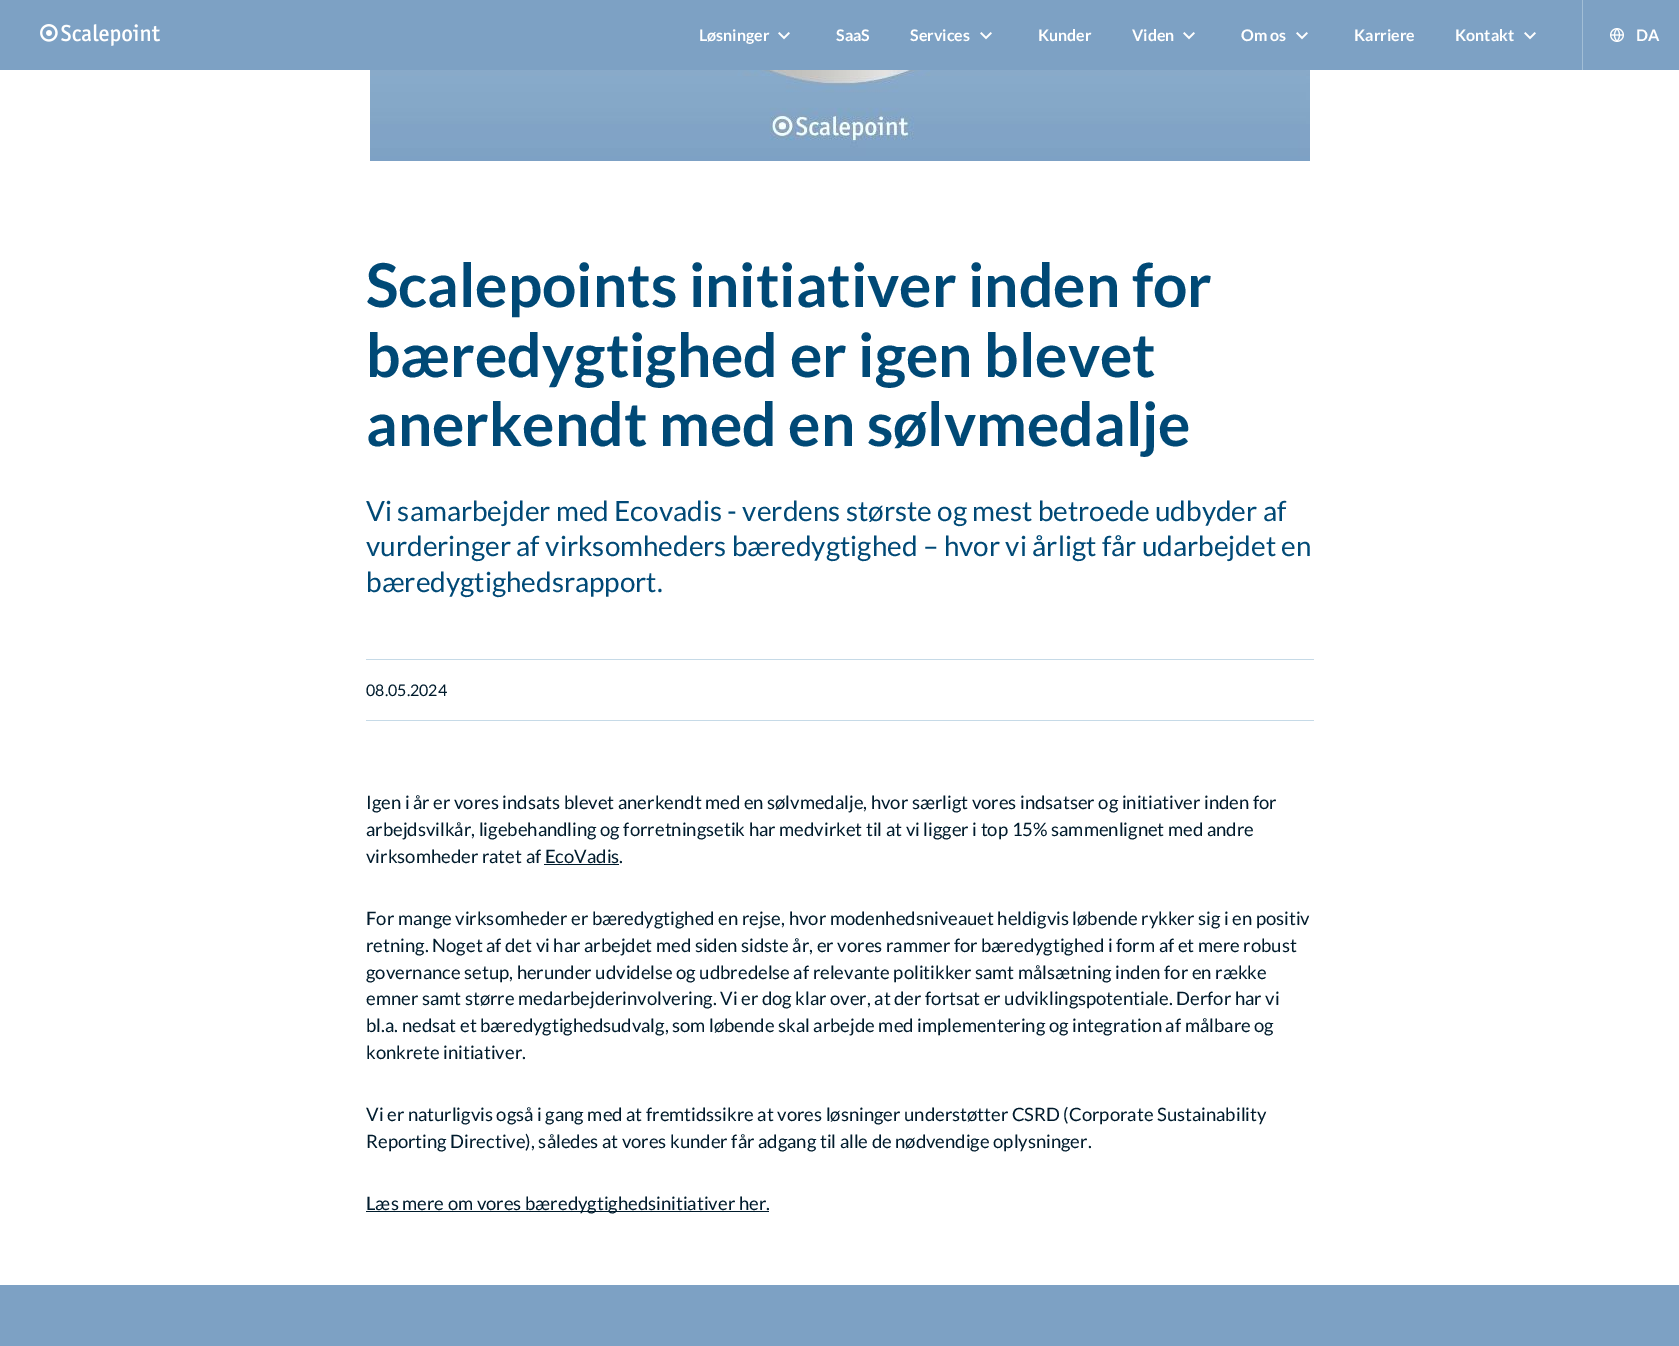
%!PS
<< /PageSize [1679 1346] >> setpagedevice
/rgb { 3 { 255 div 3 1 roll } repeat setrgbcolor } def
/font { [ exch dup neg 0 0 3 -1 roll 0 0 ] selectfont } def
/text { moveto show } def
/picture { 5 dict begin { /h /w /y /x /name } { exch def } forall
  gsave x y translate w h scale
  w h 8 [w 0 0 h 0 0] name (r) file false 3 colorimage grestore end } def
0 1346 translate 1 -1 scale
4 setmiterlimit
255 255 255 rgb
0 0 1679 1346 rectfill
125 161 196 rgb
0 0 1679 70 rectfill
(img_01.rgb) 40 24 120 22 picture
(img_02.rgb) 778 32 12 8 picture
(img_02.rgb) 980 32 12 8 picture
(img_02.rgb) 1183 32 12 8 picture
(img_02.rgb) 1296 32 12 8 picture
(img_02.rgb) 1524 32 12 8 picture
162 190 214 rgb
1582 0 1 70 rectfill
(img_03.rgb) 1610 28 14 14 picture
(img_04.rgb) 370 70 940 91 picture
198 218 231 rgb
366 659 948 1 rectfill
366 720 948 1 rectfill
0 27 44 rgb
544 864 75 1 rectfill
366 1211 403 1 rectfill
125 161 196 rgb
0 1285 1679 61 rectfill
/Lato-Bold 16 font
255 255 255 rgb
(Løsninger) 699 41 text
(SaaS) 836 41 text
(Services) 910 41 text
(Kunder) 1038 41 text
(Viden) 1132 41 text
(Om os) 1241 41 text
(Karriere) 1354 41 text
(Kontakt) 1455 41 text
(DA) 1636 41 text
/Lato-Bold 60.5 font
0 73 118 rgb
(Scalepoints initiativer inden for) 366 307 text
(bæredygtighed er igen blevet) 366 377 text
(anerkendt med en sølvmedalje) 366 446 text
/Lato-Regular 27.85 font
(Vi samarbejder med Ecovadis - verdens største og mest betroede udbyder af) 366 521 text
(vurderinger af virksomheders bæredygtighed – hvor vi årligt får udarbejdet en) 366 556 text
(bæredygtighedsrapport.) 366 592 text
/Lato-Regular 16 font
0 27 44 rgb
(08.05.2024) 366 696 text
/Lato-Regular 18.47 font
(Igen i år er vores indsats blevet anerkendt med en sølvmedalje, hvor særligt vores indsatser og initiativer inden for) 366 809 text
(arbejdsvilkår, ligebehandling og forretningsetik har medvirket til at vi ligger i top 15% sammenlignet med andre) 366 836 text
(virksomheder ratet af EcoVadis.) 366 863 text
(For mange virksomheder er bæredygtighed en rejse, hvor modenhedsniveauet heldigvis løbende rykker sig i en positiv) 366 925 text
(retning. Noget af det vi har arbejdet med siden sidste år, er vores rammer for bæredygtighed i form af et mere robust) 366 952 text
(governance setup, herunder udvidelse og udbredelse af relevante politikker samt målsætning inden for en række) 366 979 text
(emner samt større medarbejderinvolvering. Vi er dog klar over, at der fortsat er udviklingspotentiale. Derfor har vi) 366 1005 text
(bl.a. nedsat et bæredygtighedsudvalg, som løbende skal arbejde med implementering og integration af målbare og) 366 1032 text
(konkrete initiativer.) 366 1059 text
(Vi er naturligvis også i gang med at fremtidssikre at vores løsninger understøtter CSRD \(Corporate Sustainability) 366 1121 text
(Reporting Directive\), således at vores kunder får adgang til alle de nødvendige oplysninger.) 366 1148 text
(Læs mere om vores bæredygtighedsinitiativer her.) 366 1210 text
showpage
